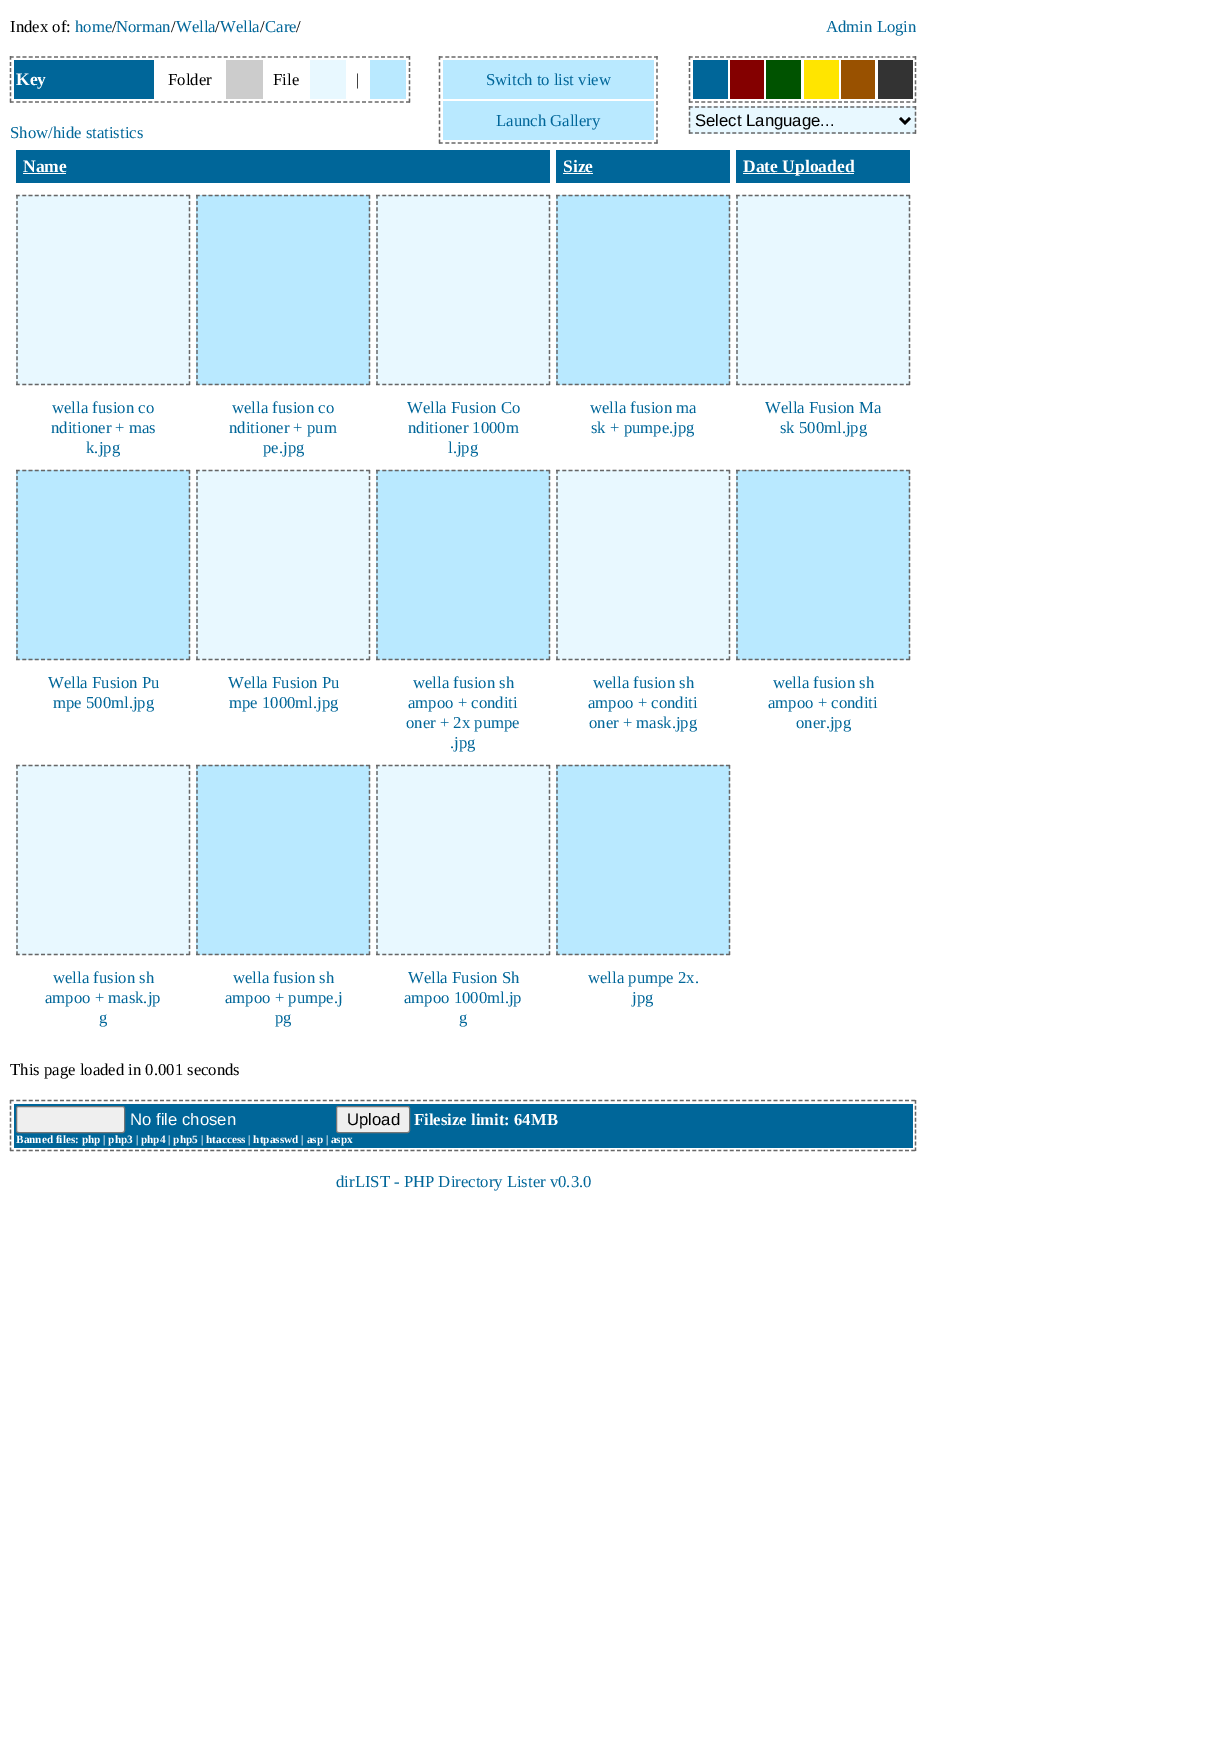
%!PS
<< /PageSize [1223 1750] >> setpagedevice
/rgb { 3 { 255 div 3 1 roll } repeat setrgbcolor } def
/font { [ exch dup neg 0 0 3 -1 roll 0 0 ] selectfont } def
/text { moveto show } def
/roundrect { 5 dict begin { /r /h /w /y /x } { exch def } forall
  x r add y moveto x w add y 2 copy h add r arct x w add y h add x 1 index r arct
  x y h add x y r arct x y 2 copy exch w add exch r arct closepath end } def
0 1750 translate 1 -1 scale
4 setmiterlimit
255 255 255 rgb
0 0 1223 1750 rectfill
102 102 102 rgb
1.2 setlinewidth
[3.75 2.54] 0 setdash
10 57 moveto 400 0 rlineto stroke
[3.75 2.33] 0 setdash
409.5 56 moveto 0 46.5 rlineto stroke
[3.75 2.54] 0 setdash
10 102 moveto 400 0 rlineto stroke
[3.75 2.33] 0 setdash
10.5 56 moveto 0 46.5 rlineto stroke
0 102 153 rgb
14 60 140 39 rectfill
204 204 204 rgb
226 60 37 39 rectfill
232 248 255 rgb
310 60 36 39 rectfill
185 233 255 rgb
370 60 36 39 rectfill
102 102 102 rgb
[3.75 2.58] 0 setdash
439 57 moveto 218.5 0 rlineto stroke
[3.75 2.69] 0 setdash
657 56 moveto 0 88 rlineto stroke
[3.75 2.58] 0 setdash
439 143 moveto 218.5 0 rlineto stroke
[3.75 2.69] 0 setdash
439.5 56 moveto 0 88 rlineto stroke
185 233 255 rgb
443 60 211 39 rectfill
443 101 211 39 rectfill
102 102 102 rgb
[3.75 2.46] 0 setdash
689 57 moveto 227 0 rlineto stroke
[3.75 2.33] 0 setdash
915.5 56 moveto 0 46.5 rlineto stroke
[3.75 2.46] 0 setdash
689 102 moveto 227 0 rlineto stroke
[3.75 2.33] 0 setdash
689.5 56 moveto 0 46.5 rlineto stroke
0 102 153 rgb
693 60 35 39 rectfill
132 0 0 rgb
730 60 34 39 rectfill
0 83 0 rgb
766 60 35 39 rectfill
255 229 0 rgb
804 60 35 39 rectfill
153 81 0 rgb
841 60 34 39 rectfill
51 51 51 rgb
878 60 35 39 rectfill
232 248 255 rgb
689 106 227 28 rectfill
102 102 102 rgb
[3.75 2.46] 0 setdash
689 107 moveto 227 0 rlineto stroke
[3.75 2.19] 0 setdash
915.5 106 moveto 0 28 rlineto stroke
[3.75 2.46] 0 setdash
689 133 moveto 227 0 rlineto stroke
[3.75 2.19] 0 setdash
689.5 106 moveto 0 28 rlineto stroke
0 0 0 rgb
2.5 setlinewidth
[] 0 setdash
900 118 moveto 5 5 rlineto 5 -5 rlineto stroke
0 102 153 rgb
16 150 534 33 rectfill
255 255 255 rgb
23 173 43 1 rectfill
0 102 153 rgb
556 150 174 33 rectfill
255 255 255 rgb
563 173 30 1 rectfill
0 102 153 rgb
736 150 174 33 rectfill
255 255 255 rgb
743 173 111 1 rectfill
232 248 255 rgb
16 195 174 190 rectfill
102 102 102 rgb
1.2 setlinewidth
[3.75 2.55] 0 setdash
16 195.5 moveto 174 0 rlineto stroke
[3.75 2.46] 0 setdash
189.5 195 moveto 0 190 rlineto stroke
[3.75 2.55] 0 setdash
16 384.5 moveto 174 0 rlineto stroke
[3.75 2.46] 0 setdash
17 195 moveto 0 190 rlineto stroke
185 233 255 rgb
196 195 174 190 rectfill
102 102 102 rgb
[3.75 2.55] 0 setdash
196 195.5 moveto 174 0 rlineto stroke
[3.75 2.46] 0 setdash
369.5 195 moveto 0 190 rlineto stroke
[3.75 2.55] 0 setdash
196 384.5 moveto 174 0 rlineto stroke
[3.75 2.46] 0 setdash
197 195 moveto 0 190 rlineto stroke
232 248 255 rgb
376 195 174 190 rectfill
102 102 102 rgb
[3.75 2.55] 0 setdash
376 195.5 moveto 174 0 rlineto stroke
[3.75 2.46] 0 setdash
549.5 195 moveto 0 190 rlineto stroke
[3.75 2.55] 0 setdash
376 384.5 moveto 174 0 rlineto stroke
[3.75 2.46] 0 setdash
377 195 moveto 0 190 rlineto stroke
185 233 255 rgb
556 195 174 190 rectfill
102 102 102 rgb
[3.75 2.55] 0 setdash
556 195.5 moveto 174 0 rlineto stroke
[3.75 2.46] 0 setdash
729.5 195 moveto 0 190 rlineto stroke
[3.75 2.55] 0 setdash
556 384.5 moveto 174 0 rlineto stroke
[3.75 2.46] 0 setdash
557 195 moveto 0 190 rlineto stroke
232 248 255 rgb
736 195 174 190 rectfill
102 102 102 rgb
[3.75 2.55] 0 setdash
736 195.5 moveto 174 0 rlineto stroke
[3.75 2.46] 0 setdash
909.5 195 moveto 0 190 rlineto stroke
[3.75 2.55] 0 setdash
736 384.5 moveto 174 0 rlineto stroke
[3.75 2.46] 0 setdash
737 195 moveto 0 190 rlineto stroke
185 233 255 rgb
16 470 174 190 rectfill
102 102 102 rgb
[3.75 2.55] 0 setdash
16 470.5 moveto 174 0 rlineto stroke
[3.75 2.46] 0 setdash
189.5 470 moveto 0 190 rlineto stroke
[3.75 2.55] 0 setdash
16 659.5 moveto 174 0 rlineto stroke
[3.75 2.46] 0 setdash
17 470 moveto 0 190 rlineto stroke
232 248 255 rgb
196 470 174 190 rectfill
102 102 102 rgb
[3.75 2.55] 0 setdash
196 470.5 moveto 174 0 rlineto stroke
[3.75 2.46] 0 setdash
369.5 470 moveto 0 190 rlineto stroke
[3.75 2.55] 0 setdash
196 659.5 moveto 174 0 rlineto stroke
[3.75 2.46] 0 setdash
197 470 moveto 0 190 rlineto stroke
185 233 255 rgb
376 470 174 190 rectfill
102 102 102 rgb
[3.75 2.55] 0 setdash
376 470.5 moveto 174 0 rlineto stroke
[3.75 2.46] 0 setdash
549.5 470 moveto 0 190 rlineto stroke
[3.75 2.55] 0 setdash
376 659.5 moveto 174 0 rlineto stroke
[3.75 2.46] 0 setdash
377 470 moveto 0 190 rlineto stroke
232 248 255 rgb
556 470 174 190 rectfill
102 102 102 rgb
[3.75 2.55] 0 setdash
556 470.5 moveto 174 0 rlineto stroke
[3.75 2.46] 0 setdash
729.5 470 moveto 0 190 rlineto stroke
[3.75 2.55] 0 setdash
556 659.5 moveto 174 0 rlineto stroke
[3.75 2.46] 0 setdash
557 470 moveto 0 190 rlineto stroke
185 233 255 rgb
736 470 174 190 rectfill
102 102 102 rgb
[3.75 2.55] 0 setdash
736 470.5 moveto 174 0 rlineto stroke
[3.75 2.46] 0 setdash
909.5 470 moveto 0 190 rlineto stroke
[3.75 2.55] 0 setdash
736 659.5 moveto 174 0 rlineto stroke
[3.75 2.46] 0 setdash
737 470 moveto 0 190 rlineto stroke
232 248 255 rgb
16 765 174 190 rectfill
102 102 102 rgb
[3.75 2.55] 0 setdash
16 765.5 moveto 174 0 rlineto stroke
[3.75 2.46] 0 setdash
189.5 765 moveto 0 190 rlineto stroke
[3.75 2.55] 0 setdash
16 954.5 moveto 174 0 rlineto stroke
[3.75 2.46] 0 setdash
17 765 moveto 0 190 rlineto stroke
185 233 255 rgb
196 765 174 190 rectfill
102 102 102 rgb
[3.75 2.55] 0 setdash
196 765.5 moveto 174 0 rlineto stroke
[3.75 2.46] 0 setdash
369.5 765 moveto 0 190 rlineto stroke
[3.75 2.55] 0 setdash
196 954.5 moveto 174 0 rlineto stroke
[3.75 2.46] 0 setdash
197 765 moveto 0 190 rlineto stroke
232 248 255 rgb
376 765 174 190 rectfill
102 102 102 rgb
[3.75 2.55] 0 setdash
376 765.5 moveto 174 0 rlineto stroke
[3.75 2.46] 0 setdash
549.5 765 moveto 0 190 rlineto stroke
[3.75 2.55] 0 setdash
376 954.5 moveto 174 0 rlineto stroke
[3.75 2.46] 0 setdash
377 765 moveto 0 190 rlineto stroke
185 233 255 rgb
556 765 174 190 rectfill
102 102 102 rgb
[3.75 2.55] 0 setdash
556 765.5 moveto 174 0 rlineto stroke
[3.75 2.46] 0 setdash
729.5 765 moveto 0 190 rlineto stroke
[3.75 2.55] 0 setdash
556 954.5 moveto 174 0 rlineto stroke
[3.75 2.46] 0 setdash
557 765 moveto 0 190 rlineto stroke
[3.75 2.51] 0 setdash
10 1100.5 moveto 906 0 rlineto stroke
[3.75 2.19] 0 setdash
915.5 1100 moveto 0 51 rlineto stroke
[3.75 2.51] 0 setdash
10 1150.5 moveto 906 0 rlineto stroke
[3.75 2.19] 0 setdash
10.5 1100 moveto 0 51 rlineto stroke
0 102 153 rgb
14 1104 899 44 rectfill
239 239 239 rgb
16.5 1106.5 108 26 2 roundrect gsave fill grestore
118 118 118 rgb
1 setlinewidth
[] 0 setdash
stroke
239 239 239 rgb
336.5 1106.5 73 26 2 roundrect gsave fill grestore
118 118 118 rgb
stroke
/LiberationSerif-Regular 16.7 font
0 0 0 rgb
(Index of:) 10 32 text
0 102 153 rgb
(home) 75 32 text
0 0 0 rgb
(/) 112 32 text
0 102 153 rgb
(Norman) 116 32 text
0 0 0 rgb
(/) 171 32 text
0 102 153 rgb
(Wella) 176 32 text
0 0 0 rgb
(/) 215 32 text
0 102 153 rgb
(Wella) 220 32 text
0 0 0 rgb
(/) 260 32 text
0 102 153 rgb
(Care) 265 32 text
0 0 0 rgb
(/) 296 32 text
0 102 153 rgb
(Admin Login) 826 32 text
/LiberationSerif-Bold 17.5 font
255 255 255 rgb
(Key) 16 85 text
/LiberationSerif-Regular 16.7 font
0 0 0 rgb
(Folder) 168 85 text
(File) 273 85 text
(|) 356 85 text
0 102 153 rgb
(Show/hide statistics) 10 138 text
(Switch to list view) 486 85 text
(Launch Gallery) 496 126 text
/LiberationSans-Regular 16.7 font
0 0 0 rgb
(Select Language...) 695 126 text
/LiberationSerif-Bold 17.5 font
255 255 255 rgb
(Name) 23 172 text
(Size) 563 172 text
(Date Uploaded) 743 172 text
/LiberationSerif-Regular 16.7 font
0 102 153 rgb
(wella fusion co) 52 413 text
(nditioner + mas) 51 433 text
(k.jpg) 86 453 text
(wella fusion co) 232 413 text
(nditioner + pum) 229 433 text
(pe.jpg) 263 453 text
(Wella Fusion Co) 407 413 text
(nditioner 1000m) 408 433 text
(l.jpg) 448 453 text
(wella fusion ma) 590 413 text
(sk + pumpe.jpg) 591 433 text
(Wella Fusion Ma) 765 413 text
(sk 500ml.jpg) 780 433 text
(Wella Fusion Pu) 48 688 text
(mpe 500ml.jpg) 53 708 text
(Wella Fusion Pu) 228 688 text
(mpe 1000ml.jpg) 229 708 text
(wella fusion sh) 413 688 text
(ampoo + conditi) 408 708 text
(oner + 2x pumpe) 406 728 text
(.jpg) 450 748 text
(wella fusion sh) 593 688 text
(ampoo + conditi) 588 708 text
(oner + mask.jpg) 589 728 text
(wella fusion sh) 773 688 text
(ampoo + conditi) 768 708 text
(oner.jpg) 796 728 text
(wella fusion sh) 53 983 text
(ampoo + mask.jp) 45 1003 text
(g) 99 1023 text
(wella fusion sh) 233 983 text
(ampoo + pumpe.j) 225 1003 text
(pg) 275 1023 text
(Wella Fusion Sh) 408 983 text
(ampoo 1000ml.jp) 404 1003 text
(g) 459 1023 text
(wella pumpe 2x.) 588 983 text
(jpg) 632 1003 text
0 0 0 rgb
(This page loaded in 0.001 seconds) 10 1075 text
/LiberationSans-Regular 16.7 font
255 255 255 rgb
(No file chosen) 130 1125 text
0 0 0 rgb
(Upload) 347 1125 text
/LiberationSerif-Bold 16.7 font
255 255 255 rgb
(Filesize limit: 64MB) 414 1125 text
/LiberationSerif-Bold 11.25 font
(Banned files: php | php3 | php4 | php5 | htaccess | htpasswd | asp | aspx) 16 1143 text
/LiberationSerif-Regular 16.7 font
0 102 153 rgb
(dirLIST - PHP Directory Lister v0.3.0) 336 1187 text
showpage
